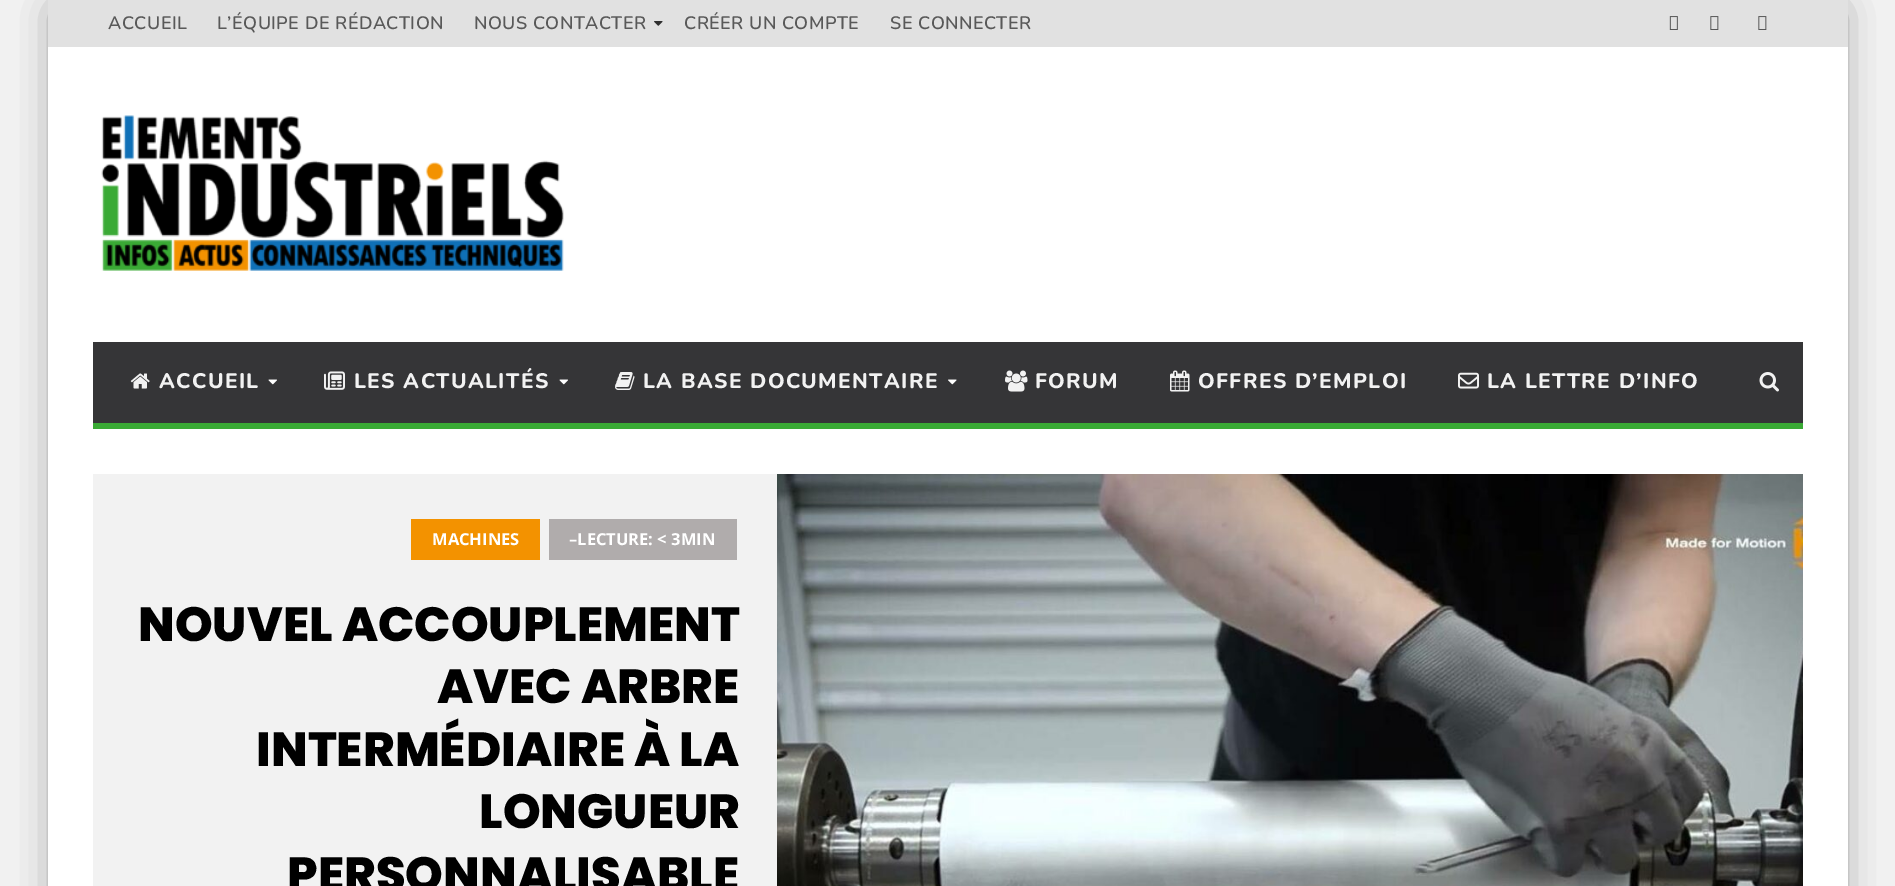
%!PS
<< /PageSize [1895 886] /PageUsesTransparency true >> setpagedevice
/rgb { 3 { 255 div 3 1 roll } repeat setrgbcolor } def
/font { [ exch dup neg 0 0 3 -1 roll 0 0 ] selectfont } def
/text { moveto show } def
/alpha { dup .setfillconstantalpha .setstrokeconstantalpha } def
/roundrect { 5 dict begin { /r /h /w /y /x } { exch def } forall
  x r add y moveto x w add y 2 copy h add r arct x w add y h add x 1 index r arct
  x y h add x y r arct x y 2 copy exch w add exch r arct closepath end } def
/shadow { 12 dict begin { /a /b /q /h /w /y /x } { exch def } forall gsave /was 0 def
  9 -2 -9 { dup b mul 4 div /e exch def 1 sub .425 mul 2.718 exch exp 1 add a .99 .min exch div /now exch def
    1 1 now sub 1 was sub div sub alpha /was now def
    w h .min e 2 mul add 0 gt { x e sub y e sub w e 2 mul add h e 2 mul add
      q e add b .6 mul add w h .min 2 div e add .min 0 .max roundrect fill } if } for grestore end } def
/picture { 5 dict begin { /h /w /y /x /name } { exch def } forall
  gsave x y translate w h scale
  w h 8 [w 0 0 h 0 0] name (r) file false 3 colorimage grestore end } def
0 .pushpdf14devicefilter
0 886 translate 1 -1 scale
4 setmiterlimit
241 241 241 rgb
0 0 1895 886 rectfill
97 97 97 rgb
60 12 1776 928 0 18 1 shadow
255 255 255 rgb
48 47 1800 839 rectfill
225 225 225 rgb
48 0 1800 47 rectfill
(img_01.rgb) 654 21 9 5 picture
(img_02.rgb) 1669 16 9 14 picture
(img_03.rgb) 1710 16 9 14 picture
(img_03.rgb) 1758 16 9 14 picture
(img_04.rgb) 101 115 463 156 picture
53 53 55 rgb
93 342 1710 81 rectfill
58 170 53 rgb
93 423 1710 6 rectfill
(img_05.rgb) 130 373 20 16 picture
(img_06.rgb) 268 379 9 6 picture
(img_07.rgb) 324 371 21 19 picture
(img_06.rgb) 559 379 9 6 picture
(img_08.rgb) 615 372 20 18 picture
(img_09.rgb) 948 379 9 6 picture
(img_10.rgb) 1005 370 23 22 picture
(img_11.rgb) 1170 370 20 22 picture
(img_12.rgb) 1458 372 21 17 picture
(img_13.rgb) 1759 372 20 20 picture
242 242 242 rgb
93 474 684 412 rectfill
243 146 0 rgb
411 519 129 41 rectfill
176 172 172 rgb
549 519 188 41 rectfill
(img_14.rgb) 777 474 1026 412 picture
/Nunito-SemiBold 18 font
89 89 89 rgb
108 29 moveto 0.45 0 (ACCUEIL) ashow
217 29 moveto 0.45 0 (L’ÉQUIPE DE RÉDACTION) ashow
474 29 moveto 0.45 0 (NOUS CONTACTER) ashow
684 29 moveto 0.45 0 (CRÉER UN COMPTE) ashow
890 29 moveto 0.45 0 (SE CONNECTER) ashow
/Nunito-ExtraBold 21 font
242 242 242 rgb
159 388 moveto 1.35 0 (ACCUEIL) ashow
354 388 moveto 1.35 0 (LES ACTUALITÉS) ashow
643 388 moveto 1.35 0 (LA BASE DOCUMENTAIRE) ashow
1035 388 moveto 1.35 0 (FORUM) ashow
1198 388 moveto 1.35 0 (OFFRES D’EMPLOI) ashow
1487 388 moveto 1.35 0 (LA LETTRE D’INFO) ashow
/OpenSans-Bold 16.5 font
255 255 255 rgb
(MACHINES) 432 545 text
(–LECTURE: < 3MIN) 569 545 text
/Poppins-ExtraBold 48 font
0 0 0 rgb
(NOUVEL ACCOUPLEMENT) 138 641 text
(AVEC ARBRE) 437 703 text
(INTERMÉDIAIRE À LA) 256 766 text
(LONGUEUR) 479 828 text
(PERSONNALISABLE) 287 891 text
.poppdf14devicefilter showpage
